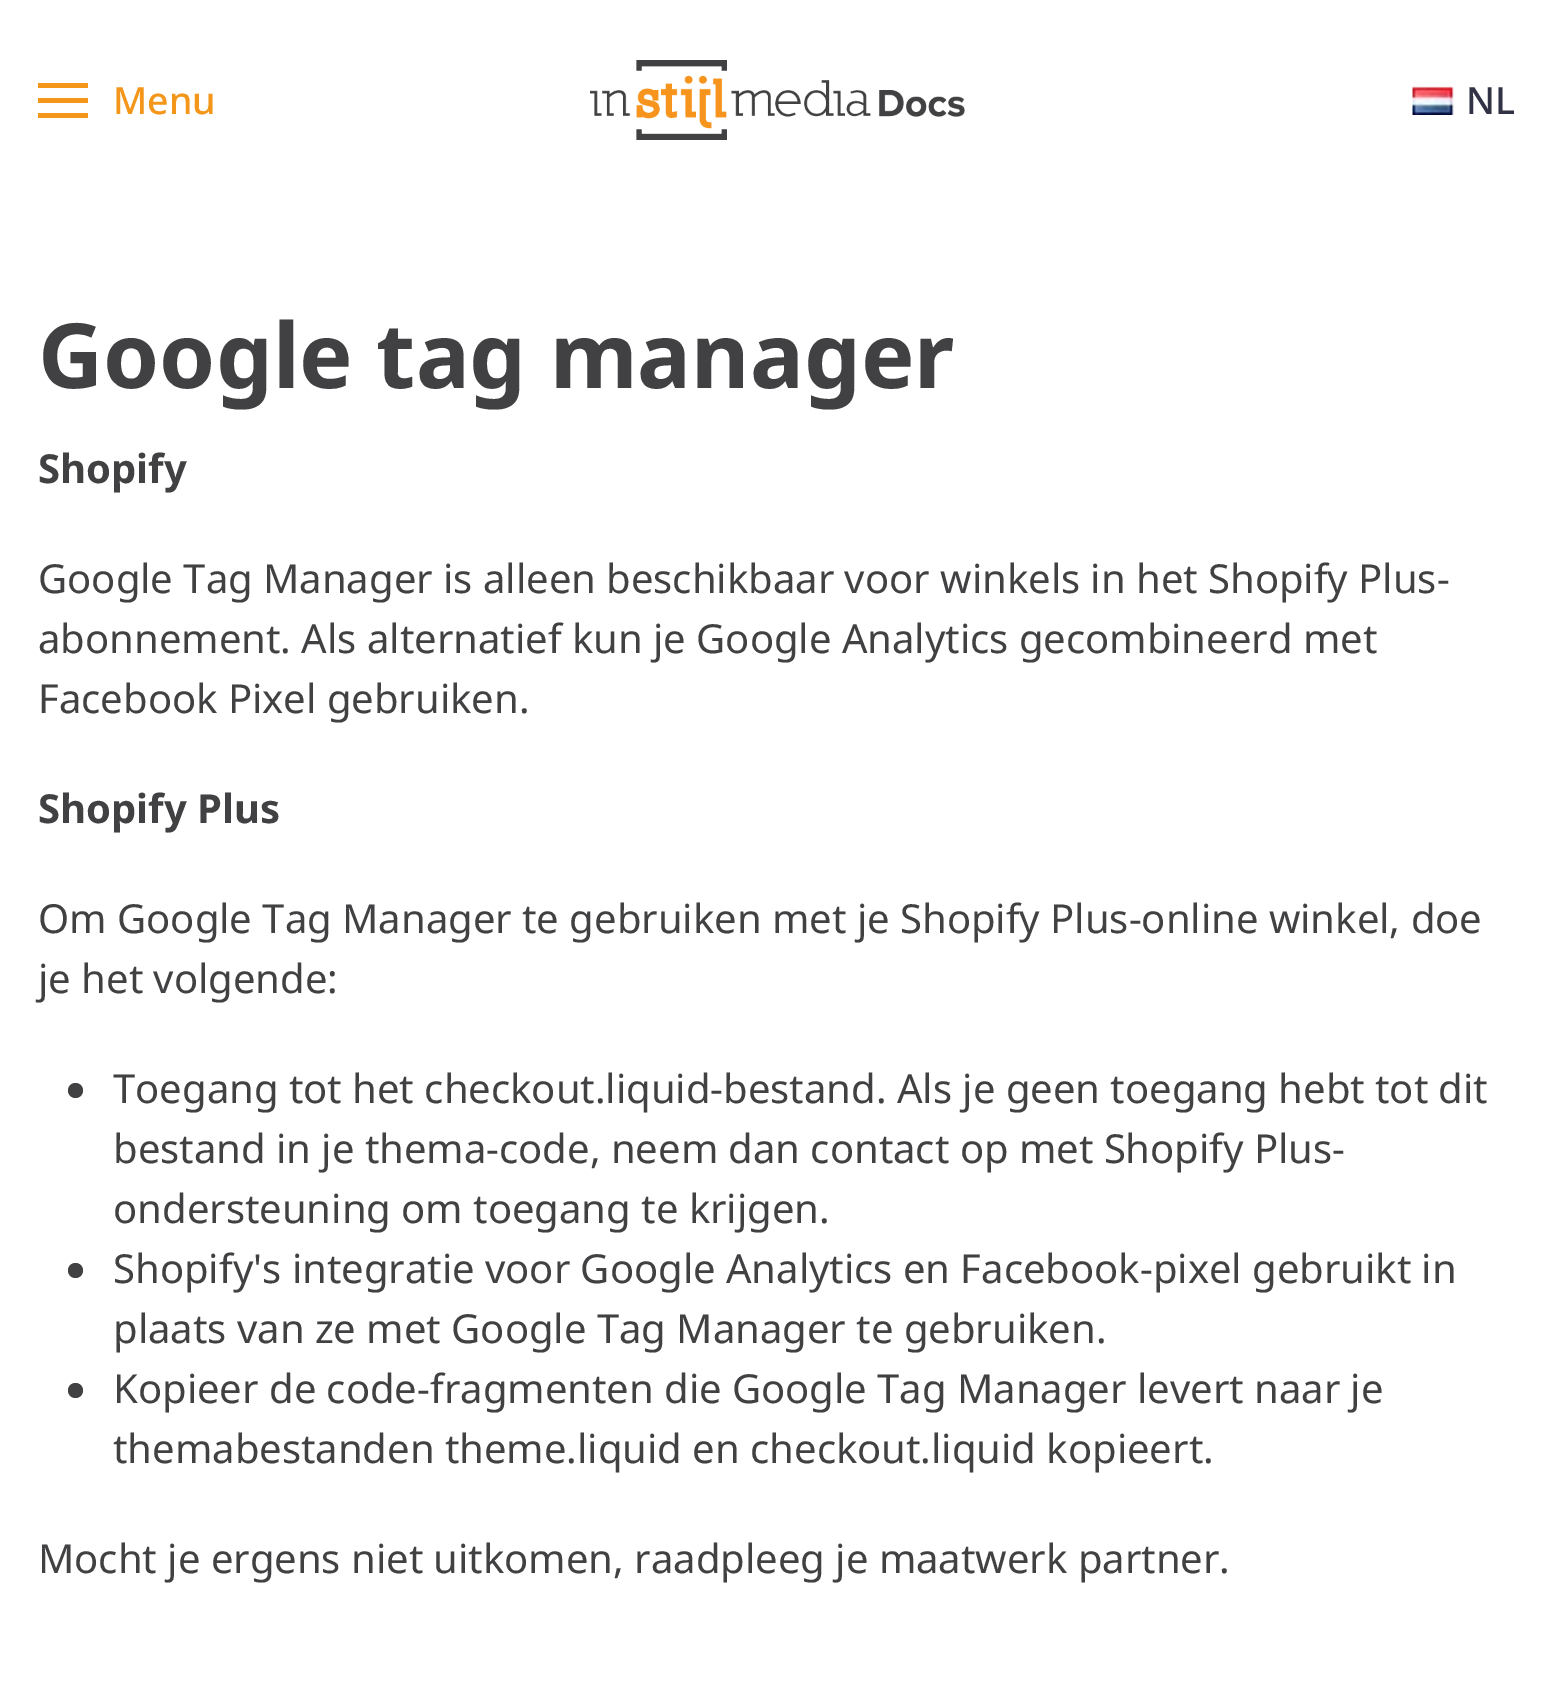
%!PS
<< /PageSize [1551 1696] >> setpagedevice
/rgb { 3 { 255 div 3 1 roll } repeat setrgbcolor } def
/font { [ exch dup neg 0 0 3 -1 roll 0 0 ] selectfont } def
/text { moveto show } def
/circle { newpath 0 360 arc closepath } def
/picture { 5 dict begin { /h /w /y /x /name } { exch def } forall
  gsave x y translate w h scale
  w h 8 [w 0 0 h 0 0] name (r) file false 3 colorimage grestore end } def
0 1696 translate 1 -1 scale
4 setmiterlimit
255 255 255 rgb
0 0 1551 1696 rectfill
244 150 26 rgb
38 83 50 5 rectfill
38 98 50 5 rectfill
38 113 50 5 rectfill
(img_01.rgb) 590 60 375 80 picture
(img_02.rgb) 1412 86 42 29 picture
65 65 67 rgb
75.5 1090.5 7.5 circle fill
75.5 1270.5 7.5 circle fill
75.5 1390.5 7.5 circle fill
/NotoSans-Medium 37.5 font
244 150 26 rgb
(Menu) 113 114 text
50 50 71 rgb
(NL) 1466 114 text
/NotoSans-Bold 90 font
65 65 67 rgb
(Google tag manager) 38 388 text
/NotoSans-Bold 40 font
(Shopify) 38 483 text
/NotoSans-Regular 40 font
(Google Tag Manager is alleen beschikbaar voor winkels in het Shopify Plus-) 38 593 text
(abonnement. Als alternatief kun je Google Analytics gecombineerd met) 38 653 text
(Facebook Pixel gebruiken.) 38 713 text
/NotoSans-Bold 40 font
(Shopify Plus) 38 823 text
/NotoSans-Regular 40 font
(Om Google Tag Manager te gebruiken met je Shopify Plus-online winkel, doe) 38 933 text
(je het volgende:) 38 993 text
(Toegang tot het checkout.liquid-bestand. Als je geen toegang hebt tot dit) 113 1103 text
(bestand in je thema-code, neem dan contact op met Shopify Plus-) 113 1163 text
(ondersteuning om toegang te krijgen.) 113 1223 text
(Shopify's integratie voor Google Analytics en Facebook-pixel gebruikt in) 113 1283 text
(plaats van ze met Google Tag Manager te gebruiken.) 113 1343 text
(Kopieer de code-fragmenten die Google Tag Manager levert naar je) 113 1403 text
(themabestanden theme.liquid en checkout.liquid kopieert.) 113 1463 text
(Mocht je ergens niet uitkomen, raadpleeg je maatwerk partner.) 38 1573 text
showpage
